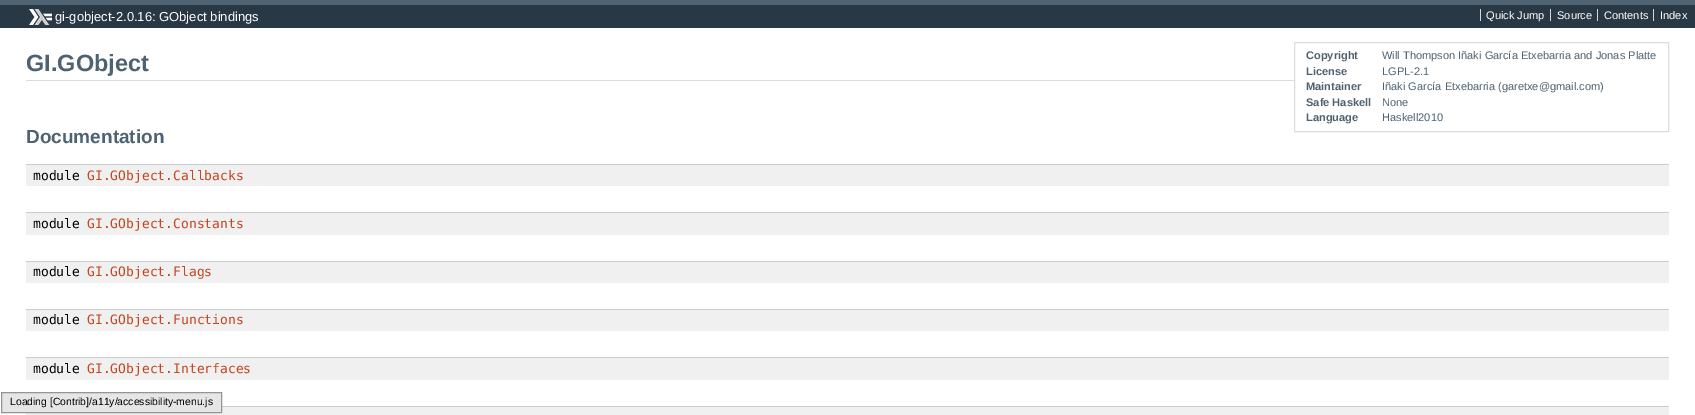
%!PS
<< /PageSize [1695 415] >> setpagedevice
/rgb { 3 { 255 div 3 1 roll } repeat setrgbcolor } def
/font { [ exch dup neg 0 0 3 -1 roll 0 0 ] selectfont } def
/text { moveto show } def
/picture { 5 dict begin { /h /w /y /x /name } { exch def } forall
  gsave x y translate w h scale
  w h 8 [w 0 0 h 0 0] name (r) file false 3 colorimage grestore end } def
0 415 translate 1 -1 scale
4 setmiterlimit
255 255 255 rgb
0 0 1695 415 rectfill
41 56 69 rgb
0 5 1695 23 rectfill
78 98 114 rgb
0 0 1695 5 rectfill
(img_01.rgb) 29 9 23 16 picture
213 213 213 rgb
1480 9 1 12 rectfill
1550 9 1 12 rectfill
1597 9 1 12 rectfill
1653 9 1 12 rectfill
221 221 221 rgb
26 80 1268 1 rectfill
1294.5 42.5 374 89 rectstroke
240 240 240 rgb
26 165 1643 21 rectfill
204 204 204 rgb
26 164 1643 1 rectfill
240 240 240 rgb
26 213 1643 22 rectfill
204 204 204 rgb
26 212 1643 1 rectfill
240 240 240 rgb
26 262 1643 21 rectfill
204 204 204 rgb
26 261 1643 1 rectfill
240 240 240 rgb
26 310 1643 21 rectfill
204 204 204 rgb
26 309 1643 1 rectfill
240 240 240 rgb
26 358 1643 22 rectfill
204 204 204 rgb
26 357 1643 1 rectfill
240 240 240 rgb
26 407 1643 8 rectfill
204 204 204 rgb
222 406 1447 1 rectfill
230 230 230 rgb
1.5 392.5 moveto 220 0 rlineto 0 20 rlineto -220 0 rlineto closepath gsave fill grestore
149 149 149 rgb
stroke
/LiberationSans-Regular 13 font
255 255 255 rgb
(gi-gobject-2.0.16: GObject bindings) 55 21 text
/LiberationSans-Regular 11.05 font
(Quick Jump) 1486 19 text
(Source) 1557 19 text
(Contents) 1604 19 text
(Index) 1660 19 text
/LiberationSans-Bold 23.5 font
78 98 114 rgb
(GI.GObject) 26 71 text
/LiberationSans-Bold 11.05 font
(Copyright) 1306 59 text
/LiberationSans-Regular 11.05 font
(Will Thompson Iñaki García Etxebarria and Jonas Platte) 1382 59 text
/LiberationSans-Bold 11.05 font
(License) 1306 75 text
/LiberationSans-Regular 11.05 font
(LGPL-2.1) 1382 75 text
/LiberationSans-Bold 11.05 font
(Maintainer) 1306 90 text
/LiberationSans-Regular 11.05 font
(Iñaki García Etxebarria \(garetxe@gmail.com\)) 1382 90 text
/LiberationSans-Bold 11.05 font
(Safe Haskell) 1306 106 text
/LiberationSans-Regular 11.05 font
(None) 1382 106 text
/LiberationSans-Bold 11.05 font
(Language) 1306 121 text
/LiberationSans-Regular 11.05 font
(Haskell2010) 1382 121 text
/LiberationSans-Bold 19 font
(Documentation) 26 143 text
/DejaVuSansMono-Regular 13 font
0 0 0 rgb
(module) 33 180 text
196 69 29 rgb
(GI.GObject.Callbacks) 87 180 text
0 0 0 rgb
(module) 33 228 text
196 69 29 rgb
(GI.GObject.Constants) 87 228 text
0 0 0 rgb
(module) 33 276 text
196 69 29 rgb
(GI.GObject.Flags) 87 276 text
0 0 0 rgb
(module) 33 324 text
196 69 29 rgb
(GI.GObject.Functions) 87 324 text
0 0 0 rgb
(module) 33 373 text
196 69 29 rgb
(GI.GObject.Interfaces) 87 373 text
/LiberationSans-Regular 10.4 font
0 0 0 rgb
(Loading [Contrib]/a11y/accessibility-menu.js) 10 405 text
showpage
